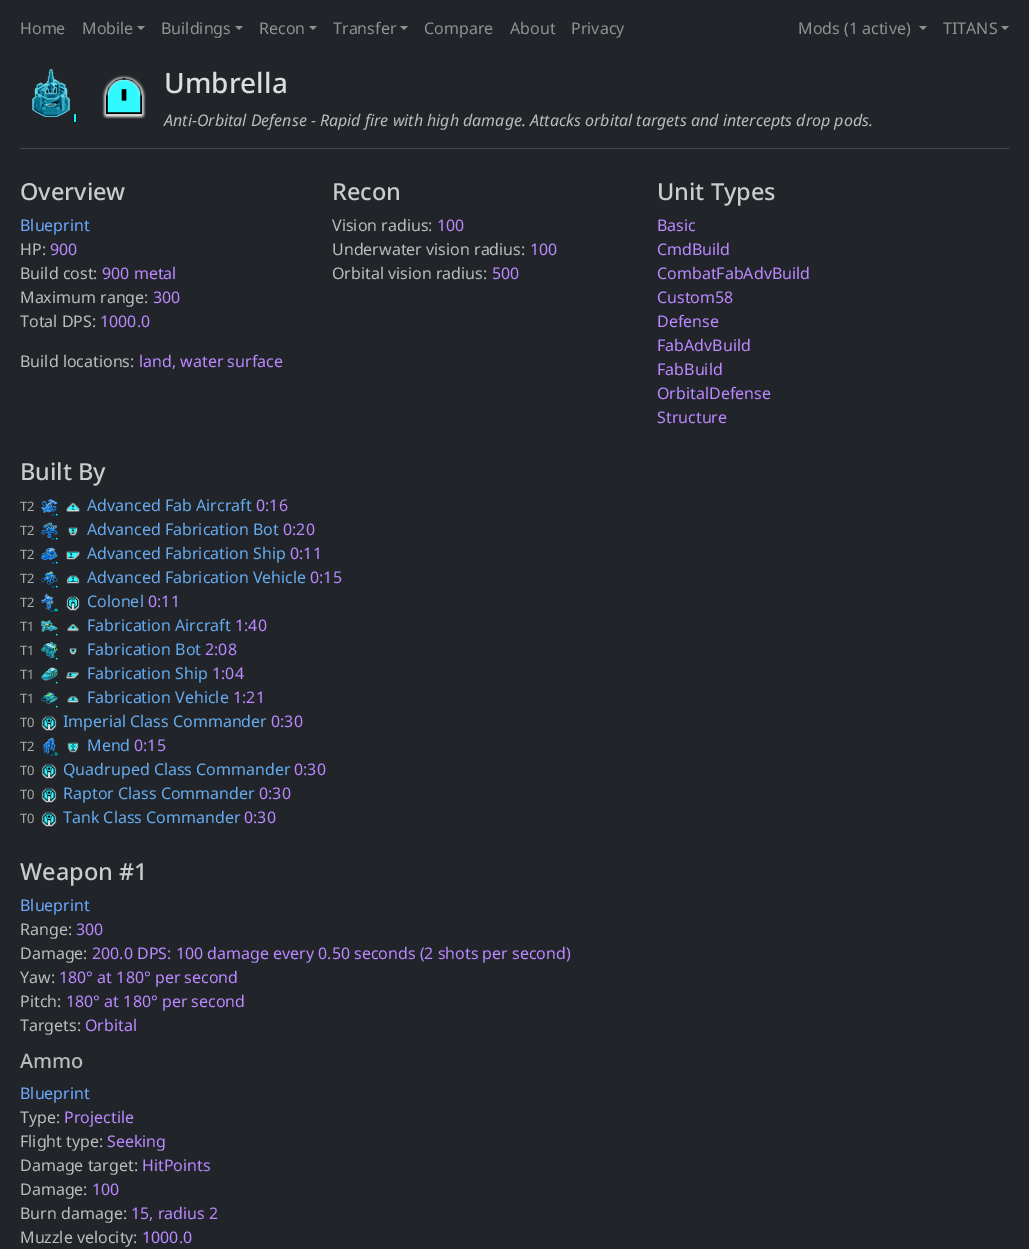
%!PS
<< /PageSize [1029 1249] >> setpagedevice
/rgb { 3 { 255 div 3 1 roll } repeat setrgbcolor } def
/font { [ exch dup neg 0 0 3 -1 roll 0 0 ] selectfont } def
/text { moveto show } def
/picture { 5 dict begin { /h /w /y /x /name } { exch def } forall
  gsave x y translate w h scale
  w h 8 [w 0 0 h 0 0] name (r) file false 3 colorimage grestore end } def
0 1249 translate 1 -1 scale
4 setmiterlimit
33 37 41 rgb
0 0 1029 1249 rectfill
143 145 147 rgb
137 26 moveto 8 0 rlineto -4 4 rlineto closepath fill
235 26 moveto 8 0 rlineto -4 4 rlineto closepath fill
309 26 moveto 8 0 rlineto -4 4 rlineto closepath fill
400 26 moveto 8 0 rlineto -4 4 rlineto closepath fill
919 26 moveto 8 0 rlineto -4 4 rlineto closepath fill
1001 26 moveto 8 0 rlineto -4 4 rlineto closepath fill
(img_01.rgb) 32 69 45 54 picture
(img_02.rgb) 102 75 44 44 picture
72 75 78 rgb
20 148 989 1 rectfill
(img_03.rgb) 41 499 17 17 picture
(img_04.rgb) 66 502 14 10 picture
(img_05.rgb) 41 522 17 18 picture
(img_06.rgb) 68 527 10 9 picture
(img_07.rgb) 41 547 17 17 picture
(img_08.rgb) 66 551 14 9 picture
(img_09.rgb) 41 571 17 17 picture
(img_10.rgb) 66 575 14 9 picture
(img_11.rgb) 41 593 17 20 picture
(img_12.rgb) 66 596 14 15 picture
(img_13.rgb) 41 620 17 16 picture
(img_14.rgb) 67 623 12 9 picture
(img_15.rgb) 41 641 17 19 picture
(img_16.rgb) 69 648 8 7 picture
(img_17.rgb) 41 667 17 17 picture
(img_18.rgb) 65 672 14 7 picture
(img_19.rgb) 41 691 17 17 picture
(img_20.rgb) 67 696 12 7 picture
(img_21.rgb) 41 716 16 15 picture
(img_22.rgb) 43 737 15 19 picture
(img_23.rgb) 67 742 12 11 picture
(img_24.rgb) 41 764 16 15 picture
(img_21.rgb) 41 788 16 15 picture
(img_21.rgb) 41 812 16 15 picture
/NotoSans-Regular 16 font
143 145 147 rgb
(Home) 20 34 text
(Mobile) 82 34 text
(Buildings) 161 34 text
(Recon) 259 34 text
(Transfer) 333 34 text
(Compare) 424 34 text
(About) 510 34 text
(Privacy) 571 34 text
(Mods \(1 active\)) 798 34 text
(TITANS) 943 34 text
/NotoSans-Medium 28 font
221 221 221 rgb
(Umbrella) 164 93 text
/NotoSans-Italic 16 font
187 187 187 rgb
(Anti-Orbital Defense - Rapid fire with high damage. Attacks orbital targets and intercepts drop pods.) 164 126 text
/NotoSans-Medium 23.5 font
204 204 204 rgb
(Overview) 20 200 text
/NotoSans-Regular 16 font
110 168 254 rgb
(Blueprint) 20 231 text
187 187 187 rgb
(HP:) 20 255 text
187 136 255 rgb
(900) 50 255 text
187 187 187 rgb
(Build cost:) 20 279 text
187 136 255 rgb
(900 metal) 102 279 text
187 187 187 rgb
(Maximum range:) 20 303 text
187 136 255 rgb
(300) 153 303 text
187 187 187 rgb
(Total DPS:) 20 327 text
187 136 255 rgb
(1000.0) 100 327 text
187 187 187 rgb
(Build locations:) 20 367 text
187 136 255 rgb
(land, water surface) 139 367 text
/NotoSans-Medium 23.5 font
204 204 204 rgb
(Recon) 332 200 text
/NotoSans-Regular 16 font
187 187 187 rgb
(Vision radius:) 332 231 text
187 136 255 rgb
(100) 437 231 text
187 187 187 rgb
(Underwater vision radius:) 332 255 text
187 136 255 rgb
(100) 530 255 text
187 187 187 rgb
(Orbital vision radius:) 332 279 text
187 136 255 rgb
(500) 492 279 text
/NotoSans-Medium 23.5 font
204 204 204 rgb
(Unit Types) 657 200 text
/NotoSans-Regular 16 font
187 136 255 rgb
(Basic) 657 231 text
(CmdBuild) 657 255 text
(CombatFabAdvBuild) 657 279 text
(Custom58) 657 303 text
(Defense) 657 327 text
(FabAdvBuild) 657 351 text
(FabBuild) 657 375 text
(OrbitalDefense) 657 399 text
(Structure) 657 423 text
/NotoSans-Medium 23.5 font
204 204 204 rgb
(Built By) 20 480 text
/NotoSans-Regular 13 font
170 170 170 rgb
(T2) 20 511 text
/NotoSans-Regular 16 font
102 170 238 rgb
(Advanced Fab Aircraft) 87 511 text
187 136 255 rgb
(0:16) 256 511 text
/NotoSans-Regular 13 font
170 170 170 rgb
(T2) 20 535 text
/NotoSans-Regular 16 font
102 170 238 rgb
(Advanced Fabrication Bot) 87 535 text
187 136 255 rgb
(0:20) 283 535 text
/NotoSans-Regular 13 font
170 170 170 rgb
(T2) 20 559 text
/NotoSans-Regular 16 font
102 170 238 rgb
(Advanced Fabrication Ship) 87 559 text
187 136 255 rgb
(0:11) 290 559 text
/NotoSans-Regular 13 font
170 170 170 rgb
(T2) 20 583 text
/NotoSans-Regular 16 font
102 170 238 rgb
(Advanced Fabrication Vehicle) 87 583 text
187 136 255 rgb
(0:15) 310 583 text
/NotoSans-Regular 13 font
170 170 170 rgb
(T2) 20 607 text
/NotoSans-Regular 16 font
102 170 238 rgb
(Colonel) 87 607 text
187 136 255 rgb
(0:11) 148 607 text
/NotoSans-Regular 13 font
170 170 170 rgb
(T1) 20 631 text
/NotoSans-Regular 16 font
102 170 238 rgb
(Fabrication Aircraft) 87 631 text
187 136 255 rgb
(1:40) 235 631 text
/NotoSans-Regular 13 font
170 170 170 rgb
(T1) 20 655 text
/NotoSans-Regular 16 font
102 170 238 rgb
(Fabrication Bot) 87 655 text
187 136 255 rgb
(2:08) 205 655 text
/NotoSans-Regular 13 font
170 170 170 rgb
(T1) 20 679 text
/NotoSans-Regular 16 font
102 170 238 rgb
(Fabrication Ship) 87 679 text
187 136 255 rgb
(1:04) 212 679 text
/NotoSans-Regular 13 font
170 170 170 rgb
(T1) 20 703 text
/NotoSans-Regular 16 font
102 170 238 rgb
(Fabrication Vehicle) 87 703 text
187 136 255 rgb
(1:21) 233 703 text
/NotoSans-Regular 13 font
170 170 170 rgb
(T0) 20 727 text
/NotoSans-Regular 16 font
102 170 238 rgb
(Imperial Class Commander) 63 727 text
187 136 255 rgb
(0:30) 271 727 text
/NotoSans-Regular 13 font
170 170 170 rgb
(T2) 20 751 text
/NotoSans-Regular 16 font
102 170 238 rgb
(Mend) 87 751 text
187 136 255 rgb
(0:15) 134 751 text
/NotoSans-Regular 13 font
170 170 170 rgb
(T0) 20 775 text
/NotoSans-Regular 16 font
102 170 238 rgb
(Quadruped Class Commander) 63 775 text
187 136 255 rgb
(0:30) 294 775 text
/NotoSans-Regular 13 font
170 170 170 rgb
(T0) 20 799 text
/NotoSans-Regular 16 font
102 170 238 rgb
(Raptor Class Commander) 63 799 text
187 136 255 rgb
(0:30) 259 799 text
/NotoSans-Regular 13 font
170 170 170 rgb
(T0) 20 823 text
/NotoSans-Regular 16 font
102 170 238 rgb
(Tank Class Commander) 63 823 text
187 136 255 rgb
(0:30) 244 823 text
/NotoSans-Medium 23.5 font
204 204 204 rgb
(Weapon #1) 20 880 text
/NotoSans-Regular 16 font
110 168 254 rgb
(Blueprint) 20 911 text
187 187 187 rgb
(Range:) 20 935 text
187 136 255 rgb
(300) 76 935 text
187 187 187 rgb
(Damage:) 20 959 text
187 136 255 rgb
(200.0 DPS: 100 damage every 0.50 seconds \(2 shots per second\)) 92 959 text
187 187 187 rgb
(Yaw:) 20 983 text
187 136 255 rgb
(180° at 180° per second) 59 983 text
187 187 187 rgb
(Pitch:) 20 1007 text
187 136 255 rgb
(180° at 180° per second) 66 1007 text
187 187 187 rgb
(Targets:) 20 1031 text
187 136 255 rgb
(Orbital) 85 1031 text
/NotoSans-Medium 20 font
187 187 187 rgb
(Ammo) 20 1068 text
/NotoSans-Regular 16 font
110 168 254 rgb
(Blueprint) 20 1099 text
187 187 187 rgb
(Type:) 20 1123 text
187 136 255 rgb
(Projectile) 64 1123 text
187 187 187 rgb
(Flight type:) 20 1147 text
187 136 255 rgb
(Seeking) 107 1147 text
187 187 187 rgb
(Damage target:) 20 1171 text
187 136 255 rgb
(HitPoints) 142 1171 text
187 187 187 rgb
(Damage:) 20 1195 text
187 136 255 rgb
(100) 92 1195 text
187 187 187 rgb
(Burn damage:) 20 1219 text
187 136 255 rgb
(15, radius 2) 131 1219 text
187 187 187 rgb
(Muzzle velocity:) 20 1243 text
187 136 255 rgb
(1000.0) 142 1243 text
showpage
